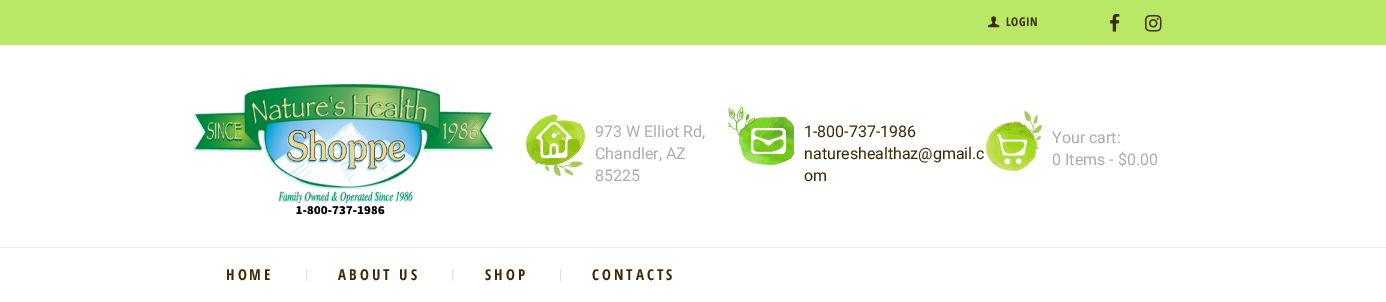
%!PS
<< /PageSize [1386 302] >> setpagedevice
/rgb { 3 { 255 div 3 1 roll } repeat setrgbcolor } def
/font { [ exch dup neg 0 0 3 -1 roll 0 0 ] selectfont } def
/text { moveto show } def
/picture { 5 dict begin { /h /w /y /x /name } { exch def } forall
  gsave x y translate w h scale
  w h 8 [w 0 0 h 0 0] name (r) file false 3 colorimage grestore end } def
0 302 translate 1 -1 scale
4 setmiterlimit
255 255 255 rgb
0 0 1386 302 rectfill
184 232 102 rgb
0 0 1386 45 rectfill
(img_01.rgb) 988 16 12 12 picture
(img_02.rgb) 1110 14 10 18 picture
(img_03.rgb) 1145 15 17 17 picture
(img_04.rgb) 193 84 300 131 picture
(img_05.rgb) 526 115 59 61 picture
(img_06.rgb) 728 106 66 59 picture
(img_07.rgb) 986 111 56 60 picture
235 237 240 rgb
0 247 1386 1 rectfill
200 201 204 rgb
[1 1] 0 setdash
306.5 269.5 moveto 0 11 rlineto stroke
452.5 269.5 moveto 0 11 rlineto stroke
560.5 269.5 moveto 0 11 rlineto stroke
/OpenSansCondensed-Bold 12 font
63 40 3 rgb
1006 26 moveto 0.5 0 (LOGIN) ashow
/Roboto-Regular 16 font
173 173 173 rgb
(973 W Elliot Rd,) 595 137 text
(Chandler, AZ) 595 159 text
(85225) 595 181 text
63 40 3 rgb
(1-800-737-1986) 804 137 text
(natureshealthaz@gmail.c) 804 159 text
(om) 804 181 text
173 173 173 rgb
(Your cart:) 1052 143 text
(0 Items - $0.00) 1052 165 text
/OpenSansCondensed-Bold 15 font
63 40 3 rgb
226 280 moveto 3 0 (HOME) ashow
338 280 moveto 3 0 (ABOUT US) ashow
485 280 moveto 3 0 (SHOP) ashow
592 280 moveto 3 0 (CONTACTS) ashow
showpage
